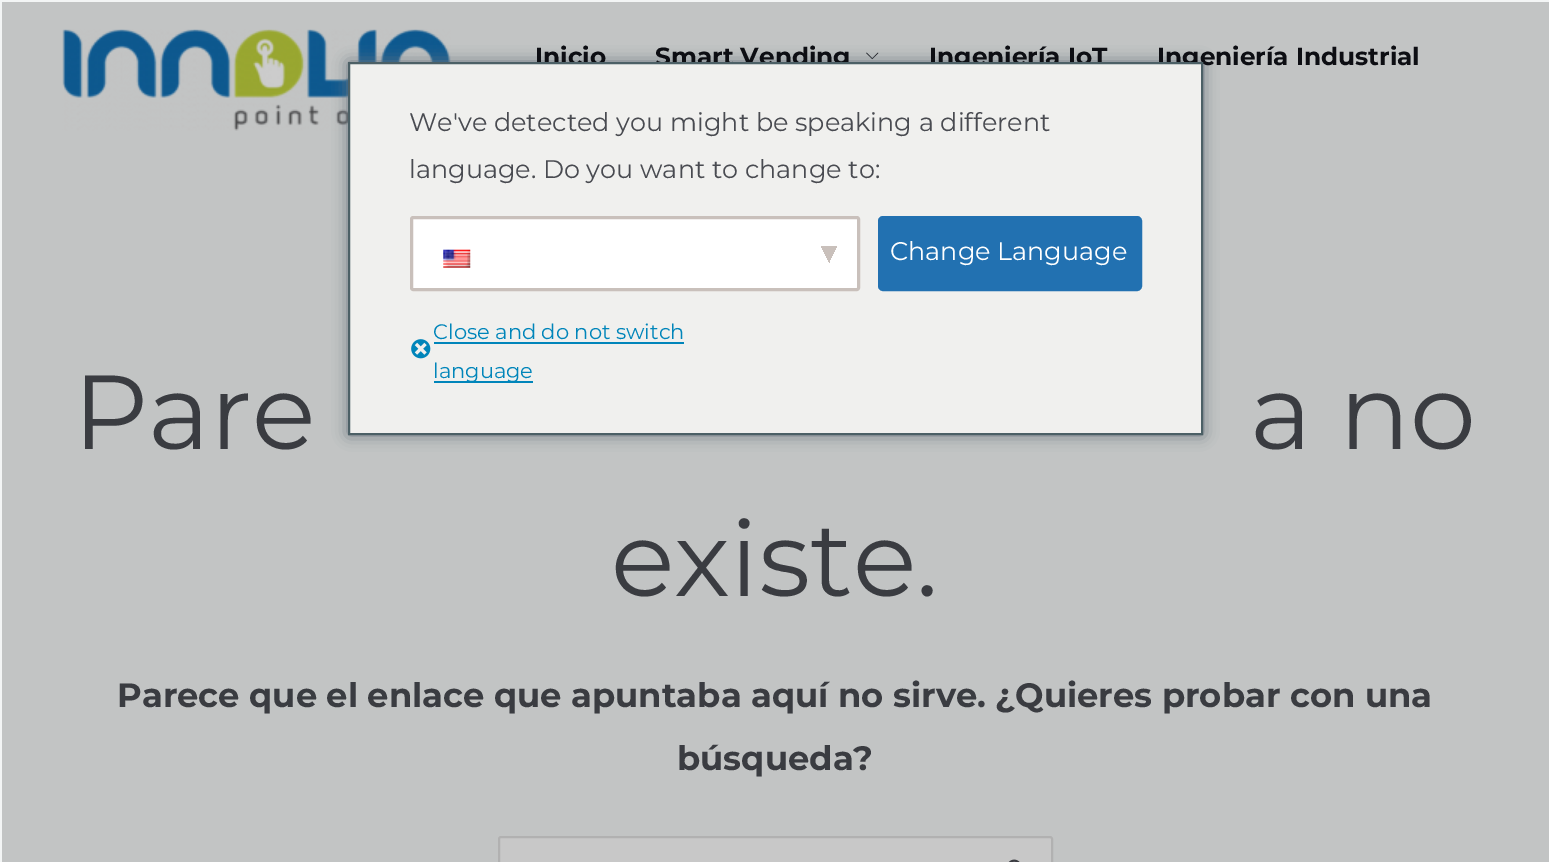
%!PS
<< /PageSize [1549 862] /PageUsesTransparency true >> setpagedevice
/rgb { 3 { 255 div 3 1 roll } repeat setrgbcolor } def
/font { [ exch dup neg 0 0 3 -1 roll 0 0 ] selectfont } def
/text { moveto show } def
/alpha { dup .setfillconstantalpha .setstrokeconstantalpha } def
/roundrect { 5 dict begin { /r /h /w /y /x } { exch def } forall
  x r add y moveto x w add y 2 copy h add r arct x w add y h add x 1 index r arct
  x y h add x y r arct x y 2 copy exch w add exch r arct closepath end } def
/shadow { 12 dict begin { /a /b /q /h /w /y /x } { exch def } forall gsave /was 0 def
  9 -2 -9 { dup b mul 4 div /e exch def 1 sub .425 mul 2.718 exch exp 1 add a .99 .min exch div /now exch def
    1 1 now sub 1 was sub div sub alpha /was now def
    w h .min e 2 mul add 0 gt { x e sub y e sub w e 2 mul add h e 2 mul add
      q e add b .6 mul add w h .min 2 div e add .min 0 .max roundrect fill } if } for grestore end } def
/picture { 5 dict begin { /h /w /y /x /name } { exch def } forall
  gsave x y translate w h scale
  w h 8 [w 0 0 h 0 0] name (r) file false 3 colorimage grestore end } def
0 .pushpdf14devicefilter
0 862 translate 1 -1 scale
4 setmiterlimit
243 245 245 rgb
0 0 1549 862 rectfill
194 196 196 rgb
2 2 1547 860 rectfill
(img_01.rgb) 62 29 389 102 picture
(img_02.rgb) 866 52 13 8 picture
200 200 200 rgb
499 837 553 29 2 roundrect gsave fill grestore
177 177 177 rgb
2 setlinewidth
stroke
(img_03.rgb) 1008 859 12 3 picture
108 119 129 rgb
348 62 855 373 0 7.5 1 shadow
/Montserrat-Bold 24.75 font
13 14 19 rgb
(Inicio) 535 65 text
(Smart Vending) 655 65 text
(Ingeniería IoT) 929 65 text
(Ingeniería Industrial) 1157 65 text
/Montserrat-Regular 105 font
58 60 65 rgb
(Pare) 73 449 text
(a no) 1250 449 text
(existe.) 611 596 text
/Montserrat-Bold 33.75 font
(Parece que el enlace que apuntaba aquí no sirve. ¿Quieres probar con una) 117 707 text
(búsqueda?) 677 770 text
240 240 238 rgb
349 63 moveto 853 0 rlineto 0 371 rlineto -853 0 rlineto closepath gsave fill grestore
76 96 102 rgb
stroke
/Montserrat-Regular 25.5 font
73 75 81 rgb
(We've detected you might be speaking a different) 409 131 text
(language. Do you want to change to:) 409 178 text
255 255 255 rgb
410 216 450 75 3 roundrect fill
gsave 830 246 moveto 8 0 rlineto 0 14 rlineto -8 0 rlineto closepath clip newpath
<< /ShadingType 2 /ColorSpace /DeviceRGB /Coords [826 250 841 258] /Extend [true true] /Function << /FunctionType 3 /Domain [0 1] /Functions [<< /FunctionType 2 /Domain [0 1] /C0 [0.788 0.753 0.733] /C1 [0.788 0.753 0.733] /N 1 >> << /FunctionType 2 /Domain [0 1] /C0 [1 1 1] /C1 [1 1 1] /N 1 >>] /Bounds [0.5] /Encode [0 1 0 1] >> >> shfill grestore
gsave 821 246 moveto 9 0 rlineto 0 17 rlineto -9 0 rlineto closepath clip newpath
<< /ShadingType 2 /ColorSpace /DeviceRGB /Coords [817 258 832 250] /Extend [true true] /Function << /FunctionType 3 /Domain [0 1] /Functions [<< /FunctionType 2 /Domain [0 1] /C0 [1 1 1] /C1 [1 1 1] /N 1 >> << /FunctionType 2 /Domain [0 1] /C0 [0.788 0.753 0.733] /C1 [0.788 0.753 0.733] /N 1 >>] /Bounds [0.5] /Encode [0 1 0 1] >> >> shfill grestore
201 192 187 rgb
3 setlinewidth
411.5 217.5 447 72 1.5 roundrect stroke
(img_04.rgb) 443 249 28 19 picture
34 113 177 rgb
879 217 262 73 4 roundrect gsave fill grestore
2 setlinewidth
stroke
255 255 255 rgb
(Change Language) 890 260 text
(img_05.rgb) 411 339 20 20 picture
/Montserrat-Regular 21 font
0 133 186 rgb
(Close and do not switch) 433 339 text
434 342 250 2 rectfill
434 381 99 2 rectfill
(language) 433 378 text
.poppdf14devicefilter showpage
